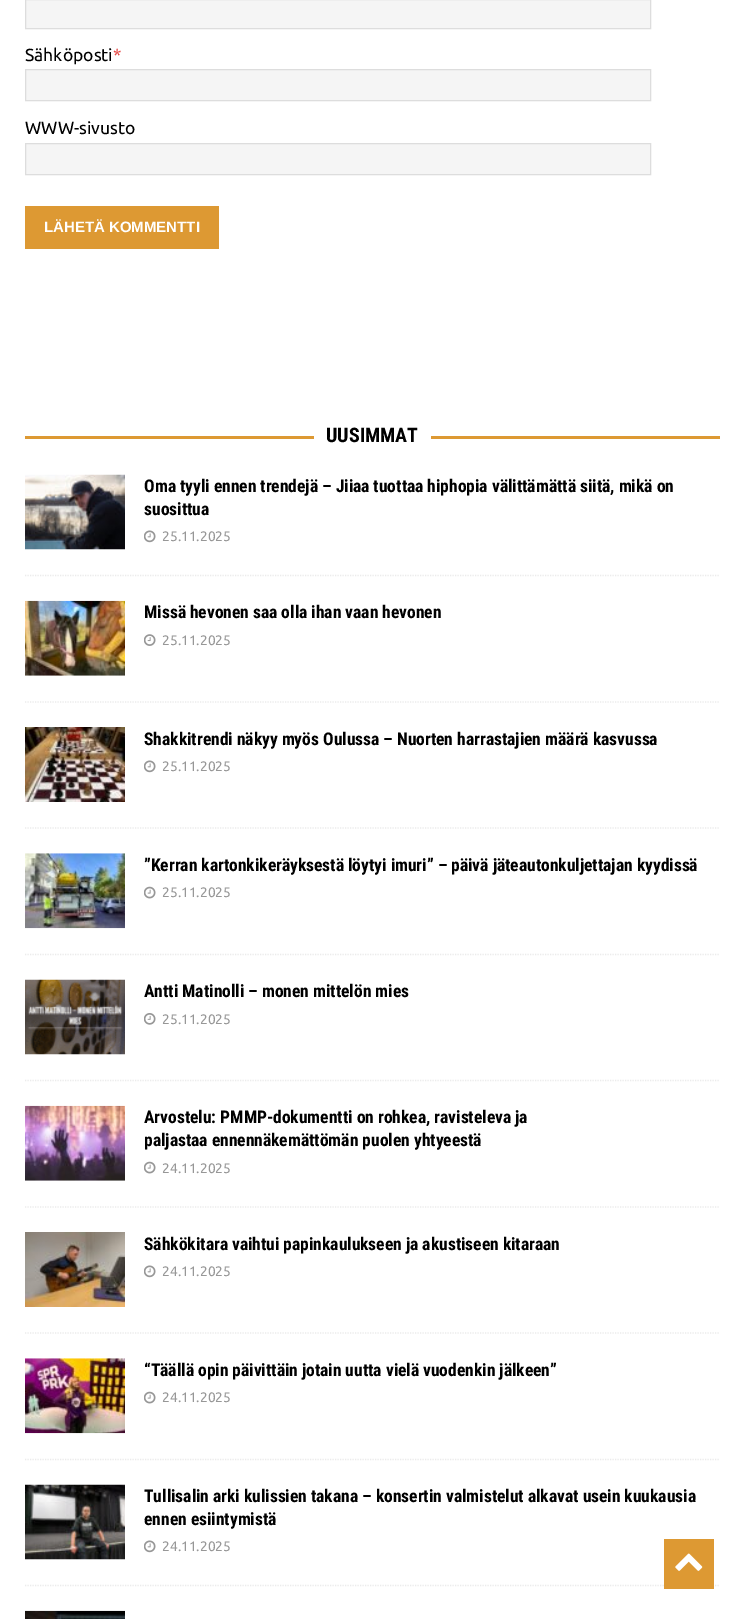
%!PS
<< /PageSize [744 1619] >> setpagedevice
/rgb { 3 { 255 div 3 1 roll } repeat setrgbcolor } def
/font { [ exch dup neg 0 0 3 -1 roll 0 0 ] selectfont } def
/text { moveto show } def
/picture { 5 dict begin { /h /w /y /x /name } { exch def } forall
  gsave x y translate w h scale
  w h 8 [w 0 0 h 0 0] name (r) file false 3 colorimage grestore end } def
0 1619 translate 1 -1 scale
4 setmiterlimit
255 255 255 rgb
0 0 744 1619 rectfill
245 245 245 rgb
25.5 -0.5 moveto 625 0 rlineto 0 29 rlineto -625 0 rlineto closepath gsave fill grestore
221 221 221 rgb
stroke
245 245 245 rgb
25.5 69.5 moveto 625 0 rlineto 0 31 rlineto -625 0 rlineto closepath gsave fill grestore
221 221 221 rgb
stroke
245 245 245 rgb
25.5 143.5 moveto 625 0 rlineto 0 31 rlineto -625 0 rlineto closepath gsave fill grestore
221 221 221 rgb
stroke
221 153 51 rgb
25 206 194 43 rectfill
25 436 695 3 rectfill
255 255 255 rgb
314 436 117 3 rectfill
235 235 235 rgb
1.2 setlinewidth
[1.25 1.25] 0 setdash
25 575.5 moveto 695 0 rlineto stroke
(img_01.rgb) 25 474 100 76 picture
(img_02.rgb) 144 530 12 13 picture
25 702 moveto 695 0 rlineto stroke
(img_03.rgb) 25 600 100 76 picture
(img_04.rgb) 144 634 12 12 picture
25 828 moveto 695 0 rlineto stroke
(img_05.rgb) 25 727 100 75 picture
(img_02.rgb) 144 760 12 13 picture
25 954.5 moveto 695 0 rlineto stroke
(img_06.rgb) 25 853 100 76 picture
(img_07.rgb) 144 886 12 13 picture
25 1080.5 moveto 695 0 rlineto stroke
(img_08.rgb) 25 979 100 76 picture
(img_09.rgb) 144 1013 12 12 picture
25 1207 moveto 695 0 rlineto stroke
(img_10.rgb) 25 1105 100 76 picture
(img_07.rgb) 144 1161 12 13 picture
25 1333 moveto 695 0 rlineto stroke
(img_11.rgb) 25 1232 100 75 picture
(img_02.rgb) 144 1265 12 13 picture
25 1459.5 moveto 695 0 rlineto stroke
(img_12.rgb) 25 1358 100 76 picture
(img_07.rgb) 144 1391 12 13 picture
25 1585.5 moveto 695 0 rlineto stroke
(img_13.rgb) 25 1484 100 76 picture
(img_02.rgb) 144 1540 12 13 picture
(img_14.rgb) 25 1610 100 9 picture
221 153 51 rgb
664 1539 50 50 rectfill
(img_15.rgb) 675 1553 28 18 picture
/Ubuntu-Regular 17.5 font
0 0 0 rgb
(Sähköposti) 25 61 text
230 73 70 rgb
(*) 113 61 text
0 0 0 rgb
(WWW-sivusto) 25 134 text
/LiberationSans-Bold 15 font
255 255 255 rgb
(LÄHETÄ KOMMENTTI) 44 232 text
/RobotoCondensed-Bold 20 font
0 0 0 rgb
(UUSIMMAT) 326 442 text
/RobotoCondensed-Bold 17.5 font
(Oma tyyli ennen trendejä – Jiiaa tuottaa hiphopia välittämättä siitä, mikä on) 144 492 text
(suosittua) 144 515 text
/Ubuntu-Regular 13.75 font
151 151 151 rgb
(25.11.2025) 162 541 text
/RobotoCondensed-Bold 17.5 font
0 0 0 rgb
(Missä hevonen saa olla ihan vaan hevonen) 144 618 text
/Ubuntu-Regular 13.75 font
151 151 151 rgb
(25.11.2025) 162 645 text
/RobotoCondensed-Bold 17.5 font
0 0 0 rgb
(Shakkitrendi näkyy myös Oulussa – Nuorten harrastajien määrä kasvussa) 144 745 text
/Ubuntu-Regular 13.75 font
151 151 151 rgb
(25.11.2025) 162 771 text
/RobotoCondensed-Bold 17.5 font
0 0 0 rgb
(”Kerran kartonkikeräyksestä löytyi imuri” – päivä jäteautonkuljettajan kyydissä) 144 871 text
/Ubuntu-Regular 13.75 font
151 151 151 rgb
(25.11.2025) 162 897 text
/RobotoCondensed-Bold 17.5 font
0 0 0 rgb
(Antti Matinolli – monen mittelön mies) 144 997 text
/Ubuntu-Regular 13.75 font
151 151 151 rgb
(25.11.2025) 162 1024 text
/RobotoCondensed-Bold 17.5 font
0 0 0 rgb
(Arvostelu: PMMP-dokumentti on rohkea, ravisteleva ja) 144 1123 text
(paljastaa ennennäkemättömän puolen yhtyeestä) 144 1146 text
/Ubuntu-Regular 13.75 font
151 151 151 rgb
(24.11.2025) 162 1173 text
/RobotoCondensed-Bold 17.5 font
0 0 0 rgb
(Sähkökitara vaihtui papinkaulukseen ja akustiseen kitaraan) 144 1250 text
/Ubuntu-Regular 13.75 font
151 151 151 rgb
(24.11.2025) 162 1276 text
/RobotoCondensed-Bold 17.5 font
0 0 0 rgb
(“Täällä opin päivittäin jotain uutta vielä vuodenkin jälkeen”) 144 1376 text
/Ubuntu-Regular 13.75 font
151 151 151 rgb
(24.11.2025) 162 1402 text
/RobotoCondensed-Bold 17.5 font
0 0 0 rgb
(Tullisalin arki kulissien takana – konsertin valmistelut alkavat usein kuukausia) 144 1502 text
(ennen esiintymistä) 144 1525 text
/Ubuntu-Regular 13.75 font
151 151 151 rgb
(24.11.2025) 162 1551 text
showpage
